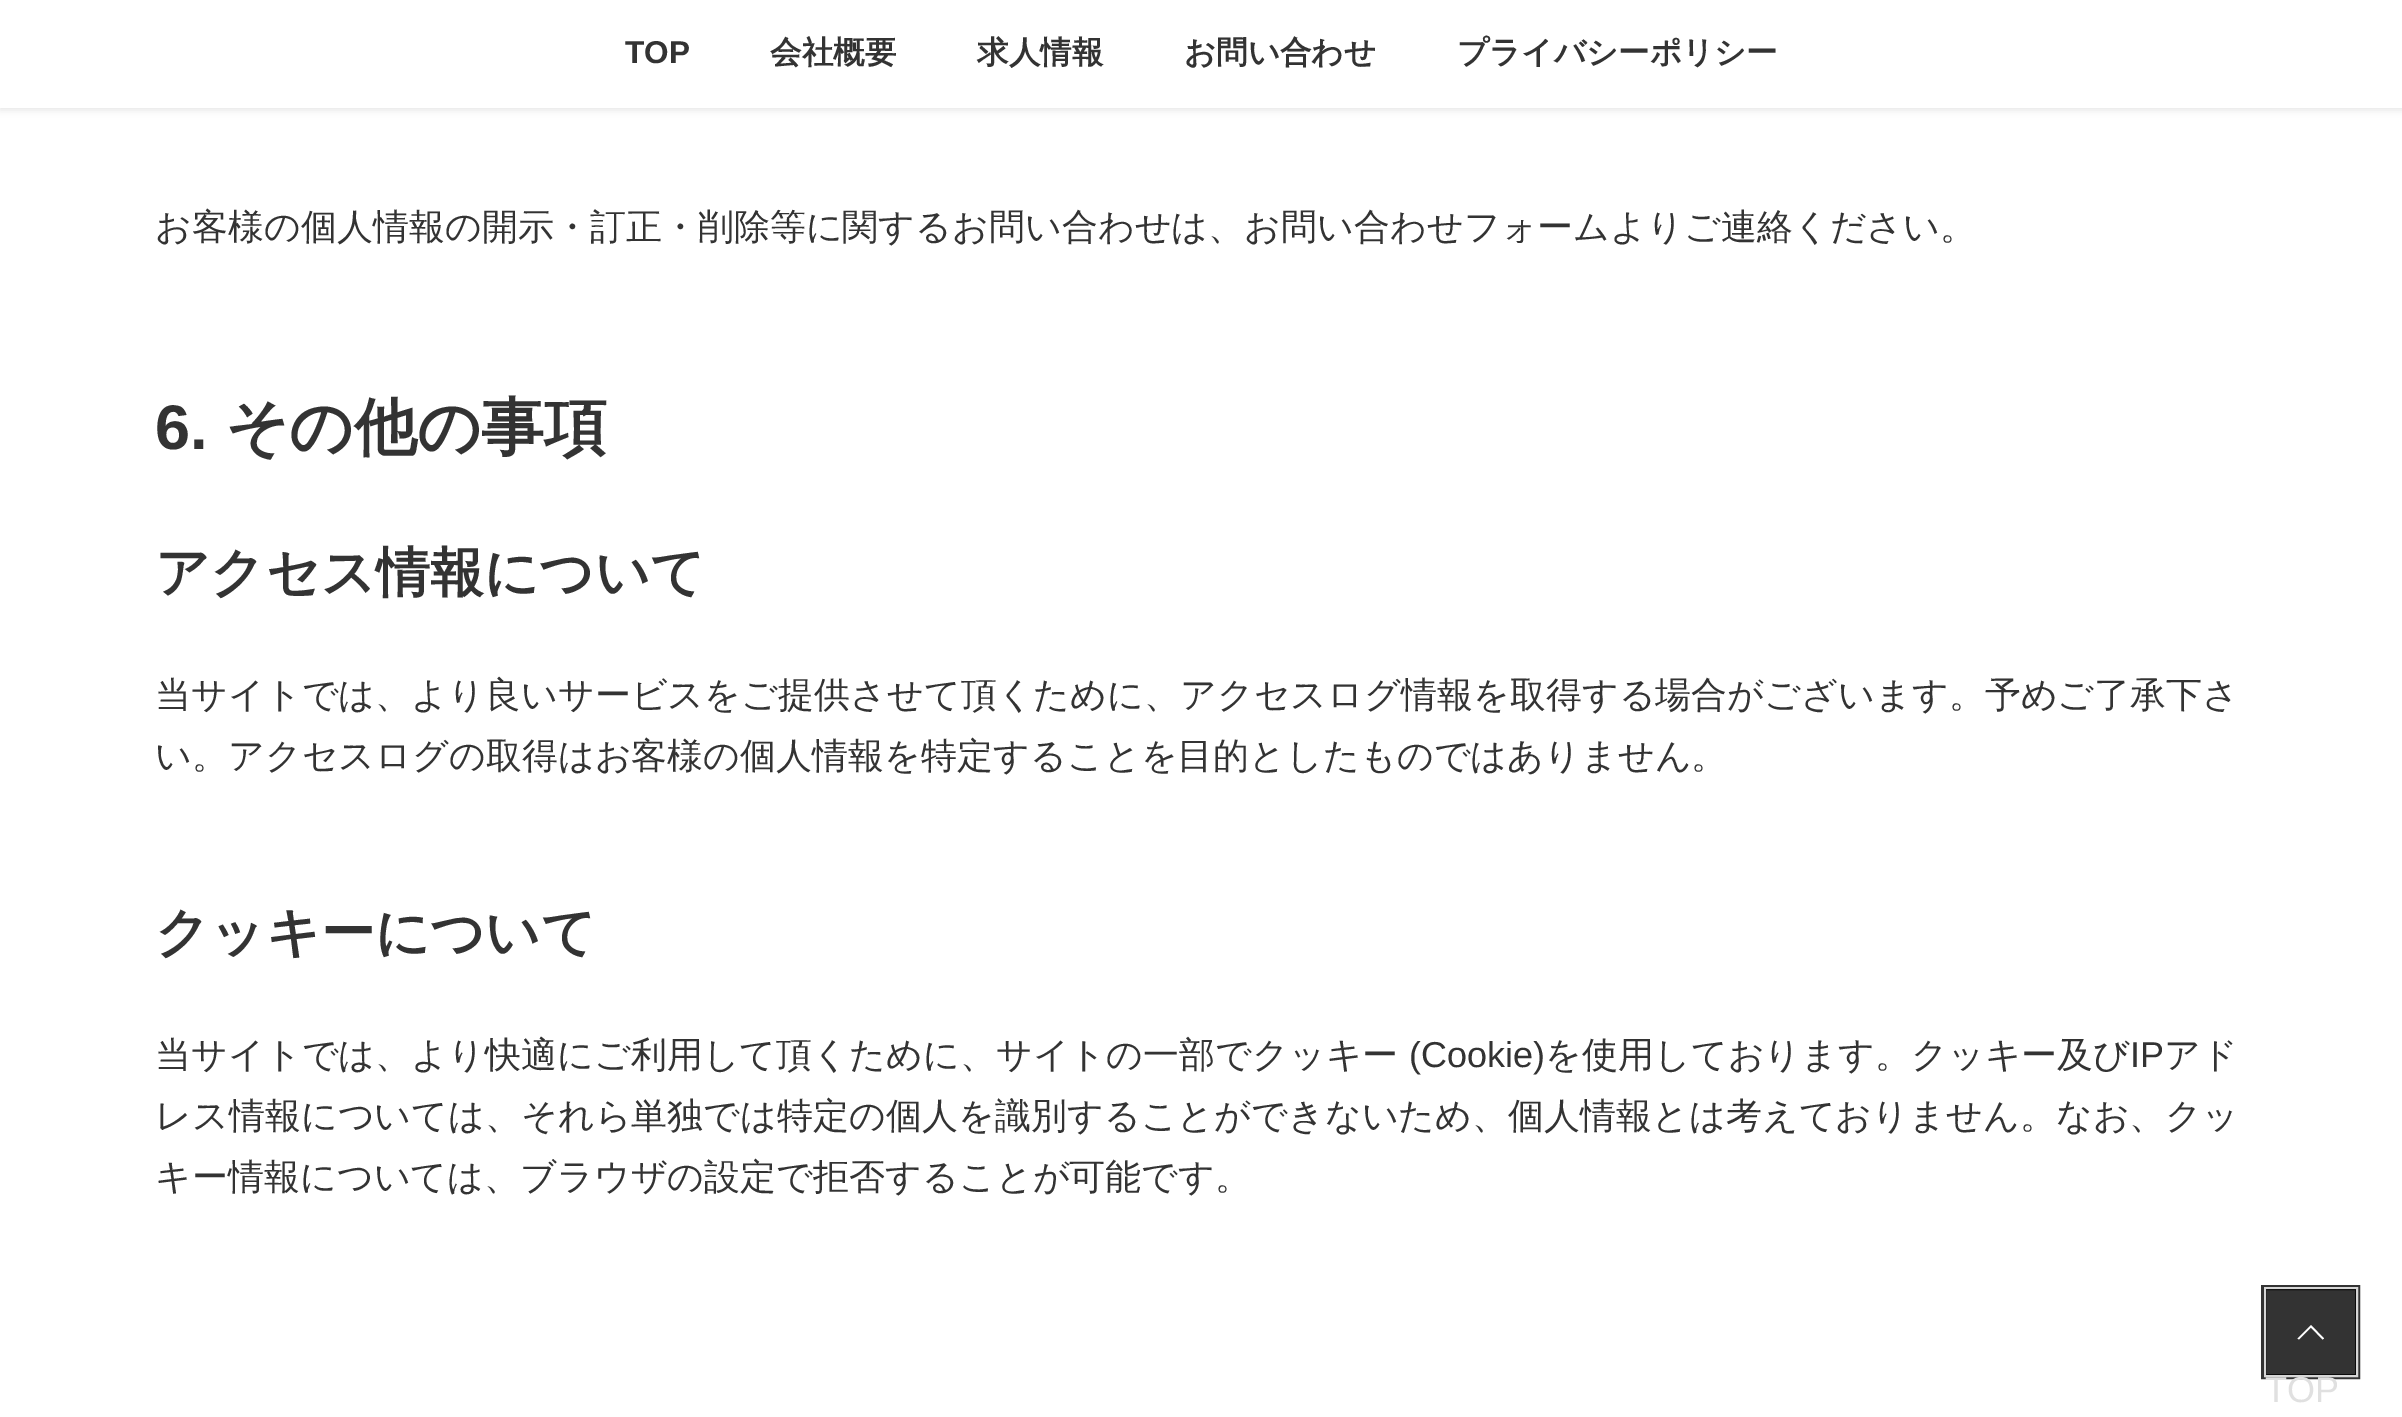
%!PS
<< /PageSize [2402 1417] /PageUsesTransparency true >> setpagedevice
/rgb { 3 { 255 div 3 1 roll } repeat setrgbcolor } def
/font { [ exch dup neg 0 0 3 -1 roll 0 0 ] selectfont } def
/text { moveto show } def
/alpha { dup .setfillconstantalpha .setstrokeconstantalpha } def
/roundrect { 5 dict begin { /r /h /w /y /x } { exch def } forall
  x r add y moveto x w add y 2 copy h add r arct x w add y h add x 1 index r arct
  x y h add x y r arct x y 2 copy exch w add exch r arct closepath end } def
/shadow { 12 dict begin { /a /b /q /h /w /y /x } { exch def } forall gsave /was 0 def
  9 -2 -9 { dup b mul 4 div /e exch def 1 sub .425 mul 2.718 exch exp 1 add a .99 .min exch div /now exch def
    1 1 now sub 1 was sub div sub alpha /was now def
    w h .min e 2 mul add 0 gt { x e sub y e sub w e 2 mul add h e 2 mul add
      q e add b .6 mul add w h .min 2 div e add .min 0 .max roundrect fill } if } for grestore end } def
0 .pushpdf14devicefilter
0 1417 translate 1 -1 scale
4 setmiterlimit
255 255 255 rgb
0 0 2402 1417 rectfill
0 0 0 rgb
0 2 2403 108 0 3.5 0.1 shadow
255 255 255 rgb
0 0 2402 108 rectfill
51 51 51 rgb
5 setlinewidth
2263.5 1287.5 94 89 rectstroke
214 214 214 rgb
2 setlinewidth
2265 1288 92 88 rectstroke
0.8 alpha
0 0 0 rgb
2266 1289 90 86 rectfill
1 alpha
255 255 255 rgb
2324 1338.5 moveto -1.5 1 rlineto -11.5 -12 rlineto -12 12 rlineto -1.5 -1 rlineto 13.5 -13.5 rlineto closepath fill
/LiberationSans-Bold 31.5 font
51 51 51 rgb
(TOP) 625 63 text
/WenQuanYiZenHei-Bold 31.5 font
(会社概要) 770 63 text
(求人情報) 977 63 text
(お問い合わせ) 1184 63 text
(プライバシーポリシー) 1457 63 text
/WenQuanYiZenHei-Medium 36 font
(お客様の個人情報の開示・訂正・削除等に関するお問い合わせは、お問い合わせフォームよりご連絡ください。) 155 239 text
/LiberationSans-Bold 63 font
(6.) 155 449 text
/WenQuanYiZenHei-Bold 63 font
(その他の事項) 225 449 text
/WenQuanYiZenHei-Bold 54 font
(アクセス情報について) 155 591 text
/WenQuanYiZenHei-Medium 36 font
(当サイトでは、より良いサービスをご提供させて頂くために、アクセスログ情報を取得する場合がございます。予めご了承下さ) 155 707 text
(い。アクセスログの取得はお客様の個人情報を特定することを目的としたものではありません。) 155 768 text
/WenQuanYiZenHei-Bold 54 font
(クッキーについて) 155 951 text
/WenQuanYiZenHei-Medium 36 font
(当サイトでは、より快適にご利用して頂くために、サイトの一部でクッキー) 155 1067 text
/LiberationSans-Regular 36 font
(\(Cookie\)) 1409 1067 text
/WenQuanYiZenHei-Medium 36 font
(を使用しております。クッキー及び) 1545 1067 text
/LiberationSans-Regular 36 font
(IP) 2130 1067 text
/WenQuanYiZenHei-Medium 36 font
(アド) 2164 1067 text
(レス情報については、それら単独では特定の個人を識別することができないため、個人情報とは考えておりません。なお、クッ) 155 1128 text
(キー情報については、ブラウザの設定で拒否することが可能です。) 155 1189 text
/LiberationSans-Regular 36 font
224 224 224 rgb
(TOP) 2265 1402 text
.poppdf14devicefilter showpage
